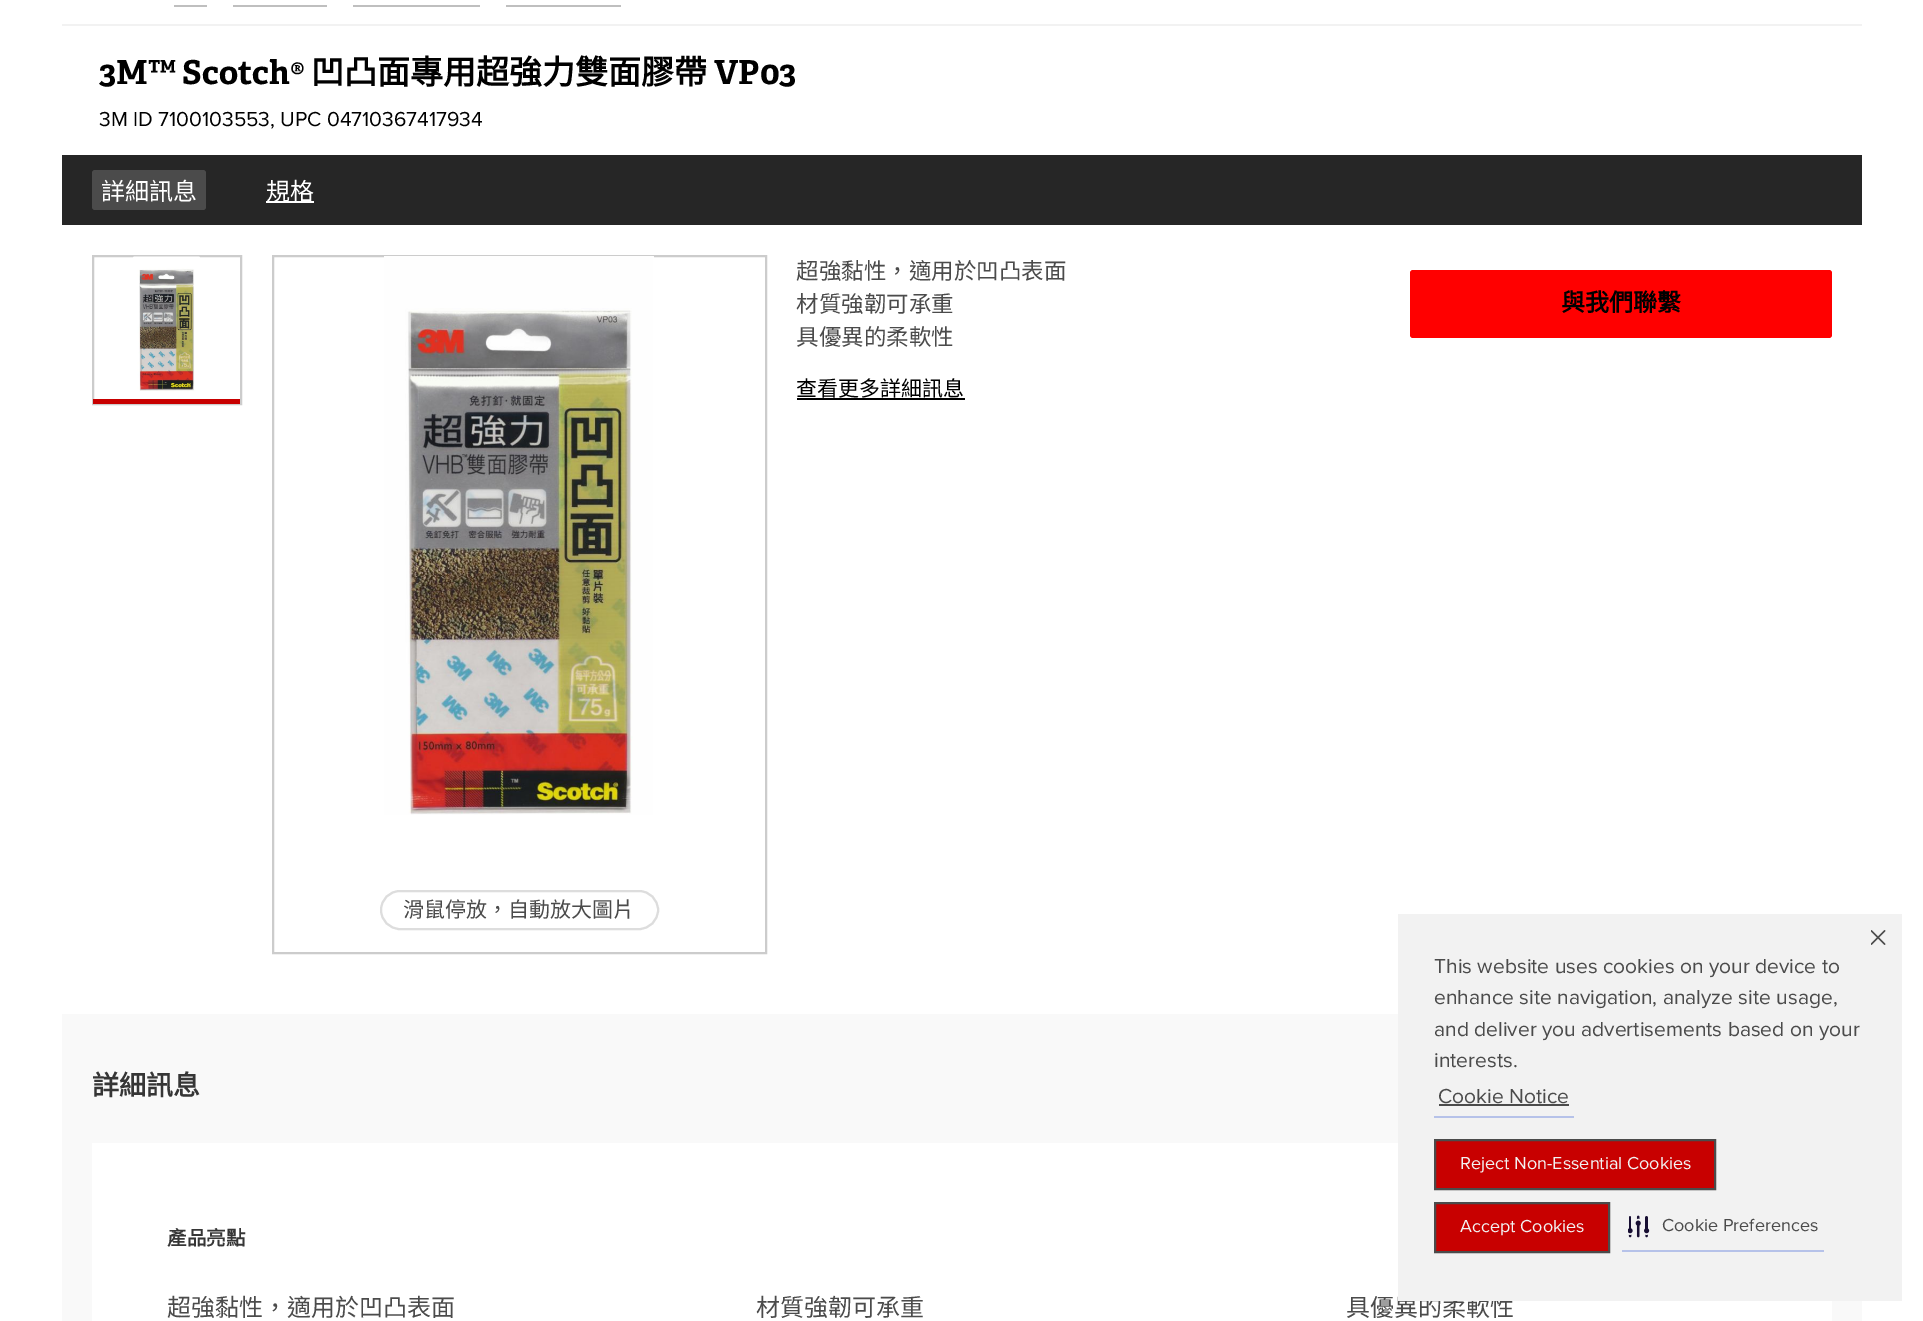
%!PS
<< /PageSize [1923 1321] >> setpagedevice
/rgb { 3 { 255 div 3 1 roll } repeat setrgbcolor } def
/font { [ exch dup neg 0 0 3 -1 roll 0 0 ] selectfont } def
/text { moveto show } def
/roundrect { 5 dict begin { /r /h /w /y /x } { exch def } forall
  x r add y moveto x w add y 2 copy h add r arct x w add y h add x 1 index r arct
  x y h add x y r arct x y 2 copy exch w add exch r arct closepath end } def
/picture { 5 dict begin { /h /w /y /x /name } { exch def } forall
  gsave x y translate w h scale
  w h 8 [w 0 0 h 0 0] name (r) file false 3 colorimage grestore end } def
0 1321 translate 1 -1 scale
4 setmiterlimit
255 255 255 rgb
0 0 1923 1321 rectfill
242 242 242 rgb
62 24 1800 2 rectfill
191 191 191 rgb
174 5 33 2 rectfill
233 5 94 2 rectfill
353 5 127 2 rectfill
506 5 115 2 rectfill
38 38 38 rgb
62 155 1800 70 rectfill
75 75 75 rgb
92 170 114 40 3 roundrect fill
255 255 255 rgb
266 201 48 2 rectfill
0 0 0 rgb
797 398 168 2 rectfill
255 0 0 rgb
1410 270 422 68 3 roundrect fill
204 204 204 rgb
2 setlinewidth
93 256 148 148 rectstroke
(img_01.rgb) 133 256 67 143 picture
200 0 0 rgb
93 399 147 5 rectfill
204 204 204 rgb
273 256 493 697 rectstroke
(img_02.rgb) 384 256 270 559 picture
221 221 221 rgb
381 891 277 38 19 roundrect stroke
249 249 249 rgb
62 1014 1800 307 rectfill
255 255 255 rgb
92 1143 1740 178 rectfill
/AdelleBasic-Bold 33 font
0 0 0 rgb
(3M™ Scotch®) 99 84 text
/NotoSansCJKTC-Bold 33 font
(凹凸面專用超強力雙面膠帶) 311 84 text
/AdelleBasic-Bold 33 font
(VP03) 714 84 text
/ProximaNova-Regular 21 font
(3M ID 7100103553, UPC 04710367417934) 99 126 text
/NotoSansCJKTC-Regular 24 font
255 255 255 rgb
(詳細訊息) 101 200 text
(規格) 266 200 text
/NotoSansCJKTC-Regular 22.5 font
75 75 75 rgb
(超強黏性，適用於凹凸表面) 796 279 text
(材質強韌可承重) 796 312 text
(具優異的柔軟性) 796 345 text
/NotoSansCJKTC-Regular 21 font
0 0 0 rgb
(查看更多詳細訊息) 796 396 text
/NotoSansCJKTC-Bold 24 font
(與我們聯繫) 1561 311 text
/NotoSansCJKTC-Regular 21 font
75 75 75 rgb
(滑鼠停放，自動放大圖片) 403 917 text
/NotoSansCJKTC-Bold 27 font
54 54 54 rgb
(詳細訊息) 92 1095 text
/NotoSansCJKTC-Bold 19.5 font
(產品亮點) 167 1245 text
/NotoSansCJKTC-Regular 24 font
75 75 75 rgb
(超強黏性，適用於凹凸表面) 167 1316 text
(材質強韌可承重) 756 1316 text
(具優異的柔軟性) 1346 1316 text
242 242 242 rgb
1398 914 504 387 rectfill
/ProximaNova-Regular 21 font
75 75 75 rgb
(This website uses cookies on your device to) 1434 973 text
(enhance site navigation, analyze site usage,) 1434 1004 text
(and deliver you advertisements based on your) 1434 1036 text
(interests.) 1434 1067 text
182 194 233 rgb
1434 1116 140 2 rectfill
75 75 75 rgb
(Cookie Notice) 1438 1103 text
1439 1104 130 2 rectfill
(img_03.rgb) 1871 930 15 15 picture
200 0 0 rgb
1435 1140 moveto 280 0 rlineto 0 49 rlineto -280 0 rlineto closepath gsave fill grestore
75 75 75 rgb
stroke
/ProximaNova-Regular 18 font
242 242 242 rgb
(Reject Non-Essential Cookies) 1460 1169 text
200 0 0 rgb
1435 1203 moveto 174 0 rlineto 0 49 rlineto -174 0 rlineto closepath gsave fill grestore
75 75 75 rgb
stroke
242 242 242 rgb
(Accept Cookies) 1460 1232 text
182 194 233 rgb
1622 1250 202 2 rectfill
(img_04.rgb) 1628 1215 22 23 picture
75 75 75 rgb
(Cookie Preferences) 1662 1231 text
showpage
